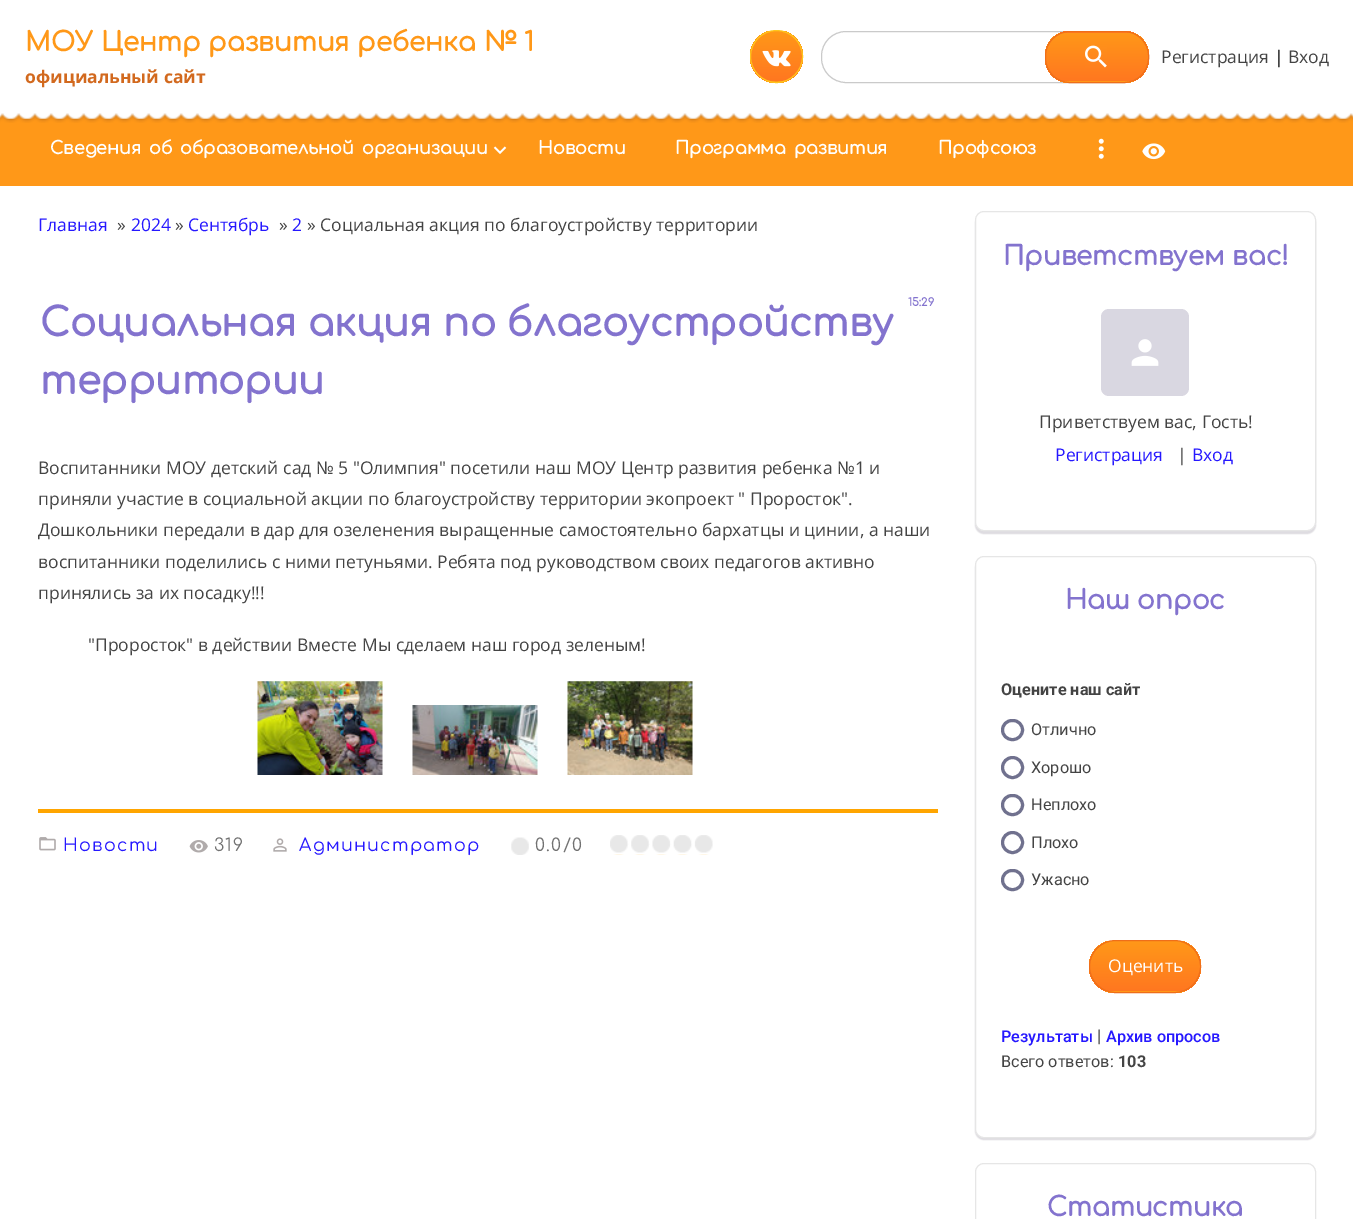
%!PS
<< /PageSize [1353 1219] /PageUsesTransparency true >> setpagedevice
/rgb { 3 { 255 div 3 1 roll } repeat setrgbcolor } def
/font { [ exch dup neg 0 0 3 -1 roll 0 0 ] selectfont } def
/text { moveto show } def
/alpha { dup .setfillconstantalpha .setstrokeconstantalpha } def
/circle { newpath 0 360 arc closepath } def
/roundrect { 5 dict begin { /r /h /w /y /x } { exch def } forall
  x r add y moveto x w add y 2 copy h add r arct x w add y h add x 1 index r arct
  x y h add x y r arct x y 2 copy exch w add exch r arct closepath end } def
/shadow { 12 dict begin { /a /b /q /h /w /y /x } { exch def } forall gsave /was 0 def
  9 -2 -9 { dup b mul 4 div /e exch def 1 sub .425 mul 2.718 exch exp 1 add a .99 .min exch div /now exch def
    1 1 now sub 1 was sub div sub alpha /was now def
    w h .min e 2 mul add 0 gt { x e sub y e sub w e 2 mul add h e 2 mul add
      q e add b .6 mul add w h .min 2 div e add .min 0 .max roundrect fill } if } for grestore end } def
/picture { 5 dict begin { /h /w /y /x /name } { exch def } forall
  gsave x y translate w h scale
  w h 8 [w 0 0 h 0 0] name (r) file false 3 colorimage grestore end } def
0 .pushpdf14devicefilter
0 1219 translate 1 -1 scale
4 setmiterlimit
255 255 255 rgb
0 0 1353 1219 rectfill
255 152 24 rgb
0 113 1353 73 rectfill
(img_01.rgb) 0 113 1353 10 picture
gsave
750 30 53 53 26.5 roundrect clip newpath
gsave 750 31 moveto 53 0 rlineto 0 50 rlineto -53 0 rlineto closepath clip newpath
<< /ShadingType 2 /ColorSpace /DeviceRGB /Coords [776 81 776 31] /Extend [true true] /Function << /FunctionType 2 /Domain [0 1] /C0 [1 0.467 0.125] /C1 [1 0.596 0.094] /N 1 >> >> shfill grestore
gsave 766 81 moveto 21 0 rlineto 0 2 rlineto -21 0 rlineto closepath clip newpath
<< /ShadingType 2 /ColorSpace /DeviceRGB /Coords [776 131 776 81] /Extend [true true] /Function << /FunctionType 2 /Domain [0 1] /C0 [1 0.467 0.125] /C1 [1 0.596 0.094] /N 1 >> >> shfill grestore
grestore
254 198 28 rgb
776.5 56.5 26 circle stroke
(img_02.rgb) 762 50 29 17 picture
202 202 202 rgb
821.5 31.5 327 51 24.5 roundrect stroke
gsave
1045 31 104 52 25 roundrect clip newpath
gsave 1060 31 moveto 74 0 rlineto 0 2 rlineto -74 0 rlineto closepath clip newpath
<< /ShadingType 2 /ColorSpace /DeviceRGB /Coords [1097 32 1097 -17] /Extend [true true] /Function << /FunctionType 2 /Domain [0 1] /C0 [1 0.467 0.125] /C1 [1 0.596 0.094] /N 1 >> >> shfill grestore
gsave 1045 33 moveto 104 0 rlineto 0 48 rlineto -104 0 rlineto closepath clip newpath
<< /ShadingType 2 /ColorSpace /DeviceRGB /Coords [1097 81 1097 32] /Extend [true true] /Function << /FunctionType 2 /Domain [0 1] /C0 [1 0.467 0.125] /C1 [1 0.596 0.094] /N 1 >> >> shfill grestore
gsave 1060 81 moveto 74 0 rlineto 0 2 rlineto -74 0 rlineto closepath clip newpath
<< /ShadingType 2 /ColorSpace /DeviceRGB /Coords [1097 129 1097 81] /Extend [true true] /Function << /FunctionType 2 /Domain [0 1] /C0 [1 0.467 0.125] /C1 [1 0.596 0.094] /N 1 >> >> shfill grestore
grestore
239 110 25 rgb
1045.5 31.5 103 51 24.5 roundrect stroke
(img_03.rgb) 1085 45 22 23 picture
(img_04.rgb) 493 146 14 8 picture
(img_05.rgb) 1098 138 6 21 picture
(img_06.rgb) 1142 143 24 17 picture
255 165 0 rgb
38 809 900 4 rectfill
(img_07.rgb) 257 681 126 94 picture
(img_08.rgb) 412 705 126 70 picture
(img_09.rgb) 567 681 126 94 picture
(img_10.rgb) 39 837 17 14 picture
(img_11.rgb) 189 840 19 13 picture
(img_12.rgb) 273 838 14 14 picture
(img_13.rgb) 511 837 18 18 picture
(img_14.rgb) 610 835 103 20 picture
18 3 39 rgb
975 214 341 320 9 0.5 0.14 shadow
255 255 255 rgb
975.5 211.5 340 319 8.5 roundrect gsave fill grestore
230 230 230 rgb
stroke
217 215 225 rgb
1101 309 88 87 8 roundrect fill
(img_15.rgb) 1131 339 28 27 picture
18 3 39 rgb
975 559 341 581 9 0.5 0.14 shadow
255 255 255 rgb
975.5 556.5 340 581 8.5 roundrect gsave fill grestore
230 230 230 rgb
stroke
112 113 142 rgb
3 setlinewidth
1002.5 720.5 20 19 9.5 roundrect stroke
1012.5 767.5 10 circle stroke
1002.5 795.5 20 19 9.5 roundrect stroke
1012.5 842.5 10 circle stroke
1002.5 870.5 20 19 9.5 roundrect stroke
gsave
1089 940 112 53 26.5 roundrect clip newpath
gsave 1089 941 moveto 112 0 rlineto 0 50 rlineto -112 0 rlineto closepath clip newpath
<< /ShadingType 2 /ColorSpace /DeviceRGB /Coords [1145 991 1145 941] /Extend [true true] /Function << /FunctionType 2 /Domain [0 1] /C0 [1 0.467 0.125] /C1 [1 0.596 0.094] /N 1 >> >> shfill grestore
gsave 1105 991 moveto 80 0 rlineto 0 2 rlineto -80 0 rlineto closepath clip newpath
<< /ShadingType 2 /ColorSpace /DeviceRGB /Coords [1145 1041 1145 991] /Extend [true true] /Function << /FunctionType 2 /Domain [0 1] /C0 [1 0.467 0.125] /C1 [1 0.596 0.094] /N 1 >> >> shfill grestore
grestore
239 110 25 rgb
1 setlinewidth
1089.5 940.5 111 52 26 roundrect stroke
230 230 230 rgb
975.5 1163.5 340 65 8.5 roundrect stroke
/Comfortaa-Bold 26.25 font
255 152 24 rgb
(МОУ Центр развития ребенка № 1) 25 51 text
/OpenSans-Bold 17.5 font
210 105 30 rgb
(официальный сайт) 25 83 text
/OpenSans-Regular 17.5 font
68 68 68 rgb
(Регистрация) 1161 63 text
0 0 0 rgb
(|) 1274 63 text
68 68 68 rgb
(Вход) 1288 63 text
/Comfortaa-Bold 17.5 font
255 255 255 rgb
50 154 moveto 2.5 0 32 (Сведения об образовательной организации) widthshow
(Новости) 538 154 text
675 154 moveto 2.5 0 32 (Программа развития) widthshow
(Профсоюз) 938 154 text
/OpenSans-Regular 17.5 font
38 24 255 rgb
(Главная) 38 231 text
68 68 68 rgb
(») 117 231 text
38 24 255 rgb
(2024) 131 231 text
68 68 68 rgb
(») 175 231 text
38 24 255 rgb
(Сентябрь) 188 231 text
68 68 68 rgb
(») 279 231 text
38 24 255 rgb
(2) 292 231 text
68 68 68 rgb
(» Социальная акция по благоустройству территории) 307 231 text
/Comfortaa-Bold 11 font
131 115 206 rgb
(15:29) 908 306 text
/Comfortaa-Bold 38.75 font
(Социальная акция по благоустройству) 40 336 text
(территории) 40 394 text
/OpenSans-Regular 17.5 font
68 68 68 rgb
(Воспитанники МОУ детский сад № 5 "Олимпия" посетили наш МОУ Центр развития ребенка №1 и) 38 474 text
(приняли участие в социальной акции по благоустройству территории экопроект " Проросток".) 38 505 text
gsave
38 451 900 163 rectclip
(Дошкольники передали в дар для озеленения выращенные самостоятельно бархатцы и цинии, а наши) 38 536 text
grestore
(воспитанники поделились с ними петуньями. Ребята под руководством своих педагогов активно) 38 568 text
(принялись за их посадку!!!) 38 599 text
("Проросток" в действии Вместе Мы сделаем наш город зеленым!) 88 651 text
/Comfortaa-Regular 17.5 font
38 24 255 rgb
63 851 moveto 1.25 0 (Новости) ashow
114 114 114 rgb
214 851 moveto 1.25 0 (319) ashow
38 24 255 rgb
299 851 moveto 1.25 0 (Администратор) ashow
114 114 114 rgb
535 851 moveto 1.25 0 (0.0/0) ashow
/Comfortaa-Bold 26.25 font
131 115 206 rgb
(Приветствуем вас!) 1003 265 text
/OpenSans-Regular 17.5 font
68 68 68 rgb
(Приветствуем вас, Гость!) 1039 428 text
38 24 255 rgb
(Регистрация) 1055 461 text
68 68 68 rgb
(|) 1177 461 text
38 24 255 rgb
(Вход) 1192 461 text
/Comfortaa-Bold 26.25 font
131 115 206 rgb
(Наш опрос) 1065 609 text
/Roboto-Bold 16.25 font
68 68 68 rgb
(Оцените наш сайт) 1001 695 text
/Roboto-Regular 16.25 font
(Отлично) 1031 735 text
(Хорошо) 1031 773 text
(Неплохо) 1031 810 text
(Плохо) 1031 848 text
(Ужасно) 1031 885 text
/OpenSans-Regular 17.5 font
255 255 255 rgb
(Оценить) 1108 972 text
/Roboto-Medium 16.25 font
38 24 255 rgb
(Результаты) 1001 1042 text
/Roboto-Regular 17.5 font
68 68 68 rgb
(|) 1097 1042 text
/Roboto-Medium 16.25 font
38 24 255 rgb
(Архив опросов) 1106 1042 text
/Roboto-Regular 16.25 font
68 68 68 rgb
(Всего ответов:) 1001 1067 text
/Roboto-Bold 16.25 font
(103) 1118 1067 text
/Comfortaa-Bold 26.25 font
131 115 206 rgb
(Статистика) 1047 1216 text
.poppdf14devicefilter showpage
